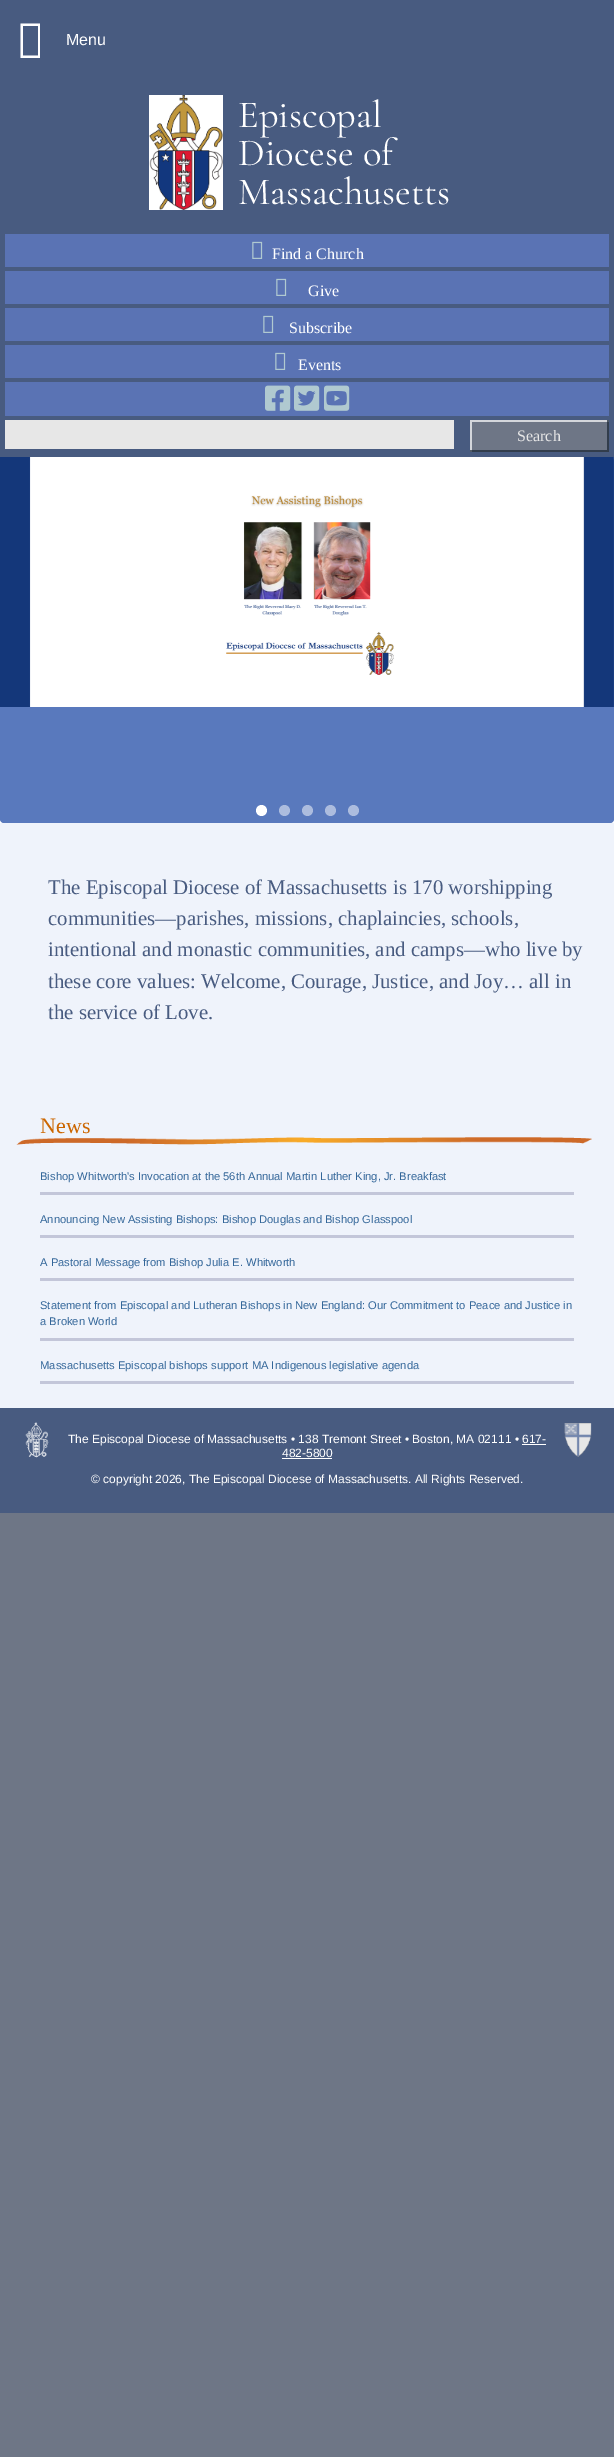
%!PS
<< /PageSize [614 2457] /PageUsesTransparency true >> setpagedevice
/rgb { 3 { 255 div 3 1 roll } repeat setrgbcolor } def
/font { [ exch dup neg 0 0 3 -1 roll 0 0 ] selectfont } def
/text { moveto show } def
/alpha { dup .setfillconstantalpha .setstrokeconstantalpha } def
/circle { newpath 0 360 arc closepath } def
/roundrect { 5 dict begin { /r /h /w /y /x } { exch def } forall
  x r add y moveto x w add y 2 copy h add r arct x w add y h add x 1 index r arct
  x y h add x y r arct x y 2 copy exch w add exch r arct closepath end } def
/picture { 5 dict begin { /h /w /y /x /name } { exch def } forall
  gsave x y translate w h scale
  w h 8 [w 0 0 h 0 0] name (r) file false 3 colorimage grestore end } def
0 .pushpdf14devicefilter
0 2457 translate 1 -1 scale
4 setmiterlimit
110 118 134 rgb
0 0 614 2457 rectfill
255 255 255 rgb
0 457 614 366 rectfill
72 91 128 rgb
0 0 614 457 rectfill
255 255 255 rgb
20.5 58 moveto 0 -34.5 rlineto 19.5 0 rlineto 0 34.5 rlineto closepath 23 55.5 moveto 15 0 rlineto 0 -29.5 rlineto -15 0 rlineto closepath fill
(img_01.rgb) 149 95 74 115 picture
90 115 180 rgb
5 234 604 33 rectfill
(img_02.rgb) 252 241 11 18 picture
5 271 604 33 rectfill
(img_02.rgb) 276 278 11 18 picture
5 308 604 33 rectfill
(img_02.rgb) 263 315 11 18 picture
5 345 604 33 rectfill
(img_02.rgb) 275 352 11 18 picture
5 382 604 34 rectfill
(img_03.rgb) 265 385 26 26 picture
(img_04.rgb) 294 385 26 26 picture
(img_05.rgb) 324 385 26 26 picture
231 231 231 rgb
5 420 449 29 rectfill
110 118 134 rgb
472 422 137 30 rectfill
gsave
470 420 139 32 rectclip
212 214 219 rgb
371 321 moveto 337 0 rlineto 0 230 rlineto -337 0 rlineto closepath 472 422 moveto 137 0 rlineto 0 30 rlineto -137 0 rlineto closepath eofill
0.7 alpha
25 37 52 rgb
371 321 moveto 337 0 rlineto 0 230 rlineto -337 0 rlineto closepath 470 420 moveto 137 0 rlineto 0 30 rlineto -137 0 rlineto closepath eofill
grestore
89 121 189 rgb
0 457 614 366 4 roundrect fill
(img_06.rgb) 0 457 614 250 picture
255 255 255 rgb
261.5 810.5 5.5 circle fill
172 188 222 rgb
284.5 810.5 5.5 circle fill
307.5 810.5 5.5 circle fill
330.5 810.5 5.5 circle fill
353.5 810.5 5.5 circle fill
239 243 251 rgb
0 823 614 585 rectfill
(img_07.rgb) 16 1137 576 8 picture
195 198 217 rgb
40 1192 534 3 rectfill
40 1235 534 3 rectfill
40 1278 534 3 rectfill
40 1338 534 3 rectfill
40 1381 534 3 rectfill
72 91 128 rgb
0 1408 614 105 rectfill
(img_08.rgb) 25 1422 24 36 picture
255 255 255 rgb
522 1444 24 1 rectfill
282 1458 50 1 rectfill
(img_09.rgb) 564 1423 28 34 picture
/LiberationSans-Regular 16 font
(Menu) 66 45 text
/CormorantGaramond-Light 38.5 font
(Episcopal) 238 127 text
(Diocese of) 238 165 text
(Massachusetts) 238 204 text
/LiberationSerif-Regular 16 font
(Find a Church) 272 259 text
(Give) 308 296 text
(Subscribe) 289 333 text
(Events) 298 370 text
231 231 231 rgb
(Search) 517 441 text
/LiberationSerif-Regular 20.8 font
72 91 128 rgb
(The Episcopal Diocese of Massachusetts is 170 worshipping) 48 894 text
(communities—parishes, missions, chaplaincies, schools,) 48 925 text
(intentional and monastic communities, and camps—who live by) 48 956 text
(these core values: Welcome, Courage, Justice, and Joy… all in) 48 988 text
(the service of Love.) 48 1019 text
/LiberationSerif-Regular 22 font
204 102 0 rgb
(News) 40 1133 text
/LiberationSans-Regular 11.2 font
51 102 153 rgb
(Bishop Whitworth's Invocation at the 56th Annual Martin Luther King, Jr. Breakfast) 40 1180 text
(Announcing New Assisting Bishops: Bishop Douglas and Bishop Glasspool) 40 1223 text
(A Pastoral Message from Bishop Julia E. Whitworth) 40 1266 text
(Statement from Episcopal and Lutheran Bishops in New England: Our Commitment to Peace and Justice in) 40 1309 text
(a Broken World) 40 1325 text
(Massachusetts Episcopal bishops support MA Indigenous legislative agenda) 40 1369 text
/LiberationSans-Regular 12 font
255 255 255 rgb
(The Episcopal Diocese of Massachusetts • 138 Tremont Street • Boston, MA 02111 • 617-) 68 1443 text
(482-5800) 282 1457 text
(© copyright 2026, The Episcopal Diocese of Massachusetts. All Rights Reserved.) 91 1483 text
.poppdf14devicefilter showpage
